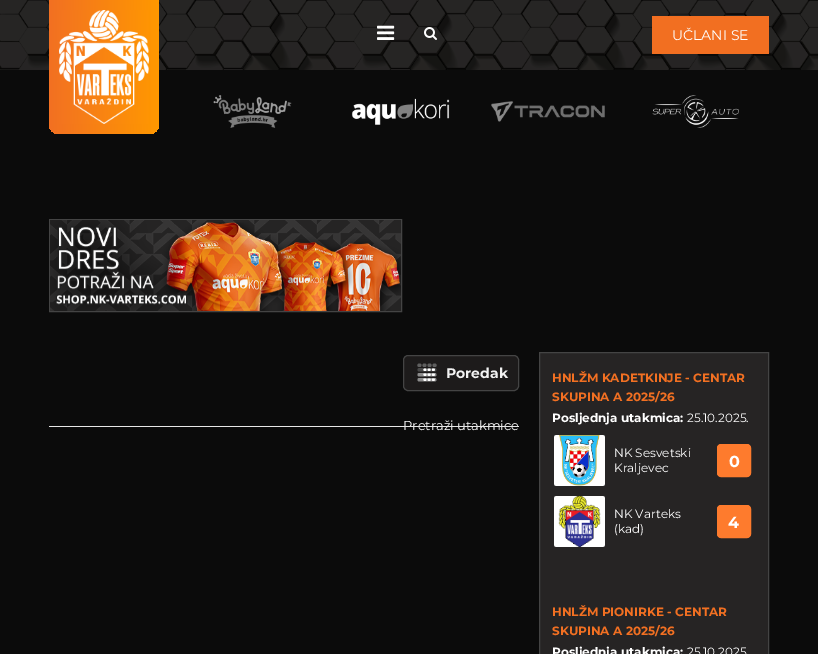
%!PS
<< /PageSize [818 654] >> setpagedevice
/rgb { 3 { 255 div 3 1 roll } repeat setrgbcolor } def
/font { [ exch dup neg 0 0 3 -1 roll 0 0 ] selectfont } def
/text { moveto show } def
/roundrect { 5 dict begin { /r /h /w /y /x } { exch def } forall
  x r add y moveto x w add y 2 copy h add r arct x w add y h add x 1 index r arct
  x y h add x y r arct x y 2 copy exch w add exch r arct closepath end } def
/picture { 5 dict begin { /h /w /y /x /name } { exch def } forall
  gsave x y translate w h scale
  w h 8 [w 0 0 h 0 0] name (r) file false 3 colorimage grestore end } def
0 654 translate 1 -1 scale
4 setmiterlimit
11 11 11 rgb
0 0 818 654 rectfill
(img_01.rgb) 0 0 818 70 picture
gsave 49 0 moveto 110 0 rlineto 0 124 rlineto 0 5.5 -4.5 10 -10 10 rcurveto -90 0 rlineto -5.5 0 -10 -4.5 -10 -10 rcurveto closepath clip newpath
<< /ShadingType 2 /ColorSpace /DeviceRGB /Coords [49 67 159 67] /Extend [true true] /Function << /FunctionType 2 /Domain [0 1] /C0 [0.949 0.439 0.133] /C1 [1 0.596 0] /N 1 >> >> shfill grestore
(img_02.rgb) 59 10 90 114 picture
(img_03.rgb) 377 25 18 15 picture
(img_04.rgb) 424 27 13 13 picture
gsave 652 16 117 38 3 roundrect clip newpath
<< /ShadingType 2 /ColorSpace /DeviceRGB /Coords [652 35 769 35] /Extend [true true] /Function << /FunctionType 2 /Domain [0 1] /C0 [0.949 0.439 0.133] /C1 [0.949 0.435 0.129] /N 1 >> >> shfill grestore
(img_05.rgb) 213 95 79 33 picture
(img_06.rgb) 351 98 99 27 picture
(img_07.rgb) 491 101 114 21 picture
(img_08.rgb) 652 95 87 33 picture
68 68 68 rgb
49.5 219.5 352 92 rectstroke
(img_09.rgb) 50 220 351 91 picture
29 27 27 rgb
403.5 355.5 115 35 4.5 roundrect gsave fill grestore
68 68 68 rgb
stroke
(img_10.rgb) 417 363 20 19 picture
38 36 36 rgb
539.5 352.5 moveto 229 0 rlineto 0 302 rlineto -229 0 rlineto closepath gsave fill grestore
68 68 68 rgb
stroke
(img_11.rgb) 554 435 51 51 picture
254 123 45 rgb
717.5 444.5 33 32 3.5 roundrect gsave fill grestore
stroke
(img_12.rgb) 554 496 51 51 picture
717.5 505.5 33 32 3.5 roundrect gsave fill grestore
stroke
/Montserrat-Regular 14 font
255 255 255 rgb
(UČLANI SE) 672 40 text
/Montserrat-Bold 14 font
242 242 242 rgb
(Poredak) 446 378 text
/Montserrat-Regular 13 font
255 255 255 rgb
(Pretraži utakmice) 403 430 text
231 231 231 rgb
49 426 470 1 rectfill
/Montserrat-Bold 12 font
242 112 34 rgb
(HNLŽM KADETKINJE - CENTAR) 552 382 text
(SKUPINA A 2025/26) 552 401 text
255 255 255 rgb
(Posljednja utakmica:) 552 422 text
/Montserrat-Regular 12 font
(25.10.2025.) 687 422 text
(NK Sesvetski) 614 457 text
(Kraljevec) 614 472 text
/Montserrat-Bold 16 font
(0) 729 467 text
/Montserrat-Regular 12 font
(NK Varteks) 614 518 text
(\(kad\)) 614 533 text
/Montserrat-Bold 16 font
(4) 728 528 text
/Montserrat-Bold 12 font
242 112 34 rgb
(HNLŽM PIONIRKE - CENTAR) 552 616 text
(SKUPINA A 2025/26) 552 635 text
255 255 255 rgb
(Posljednja utakmica:) 552 656 text
/Montserrat-Regular 12 font
(25.10.2025) 687 656 text
showpage
